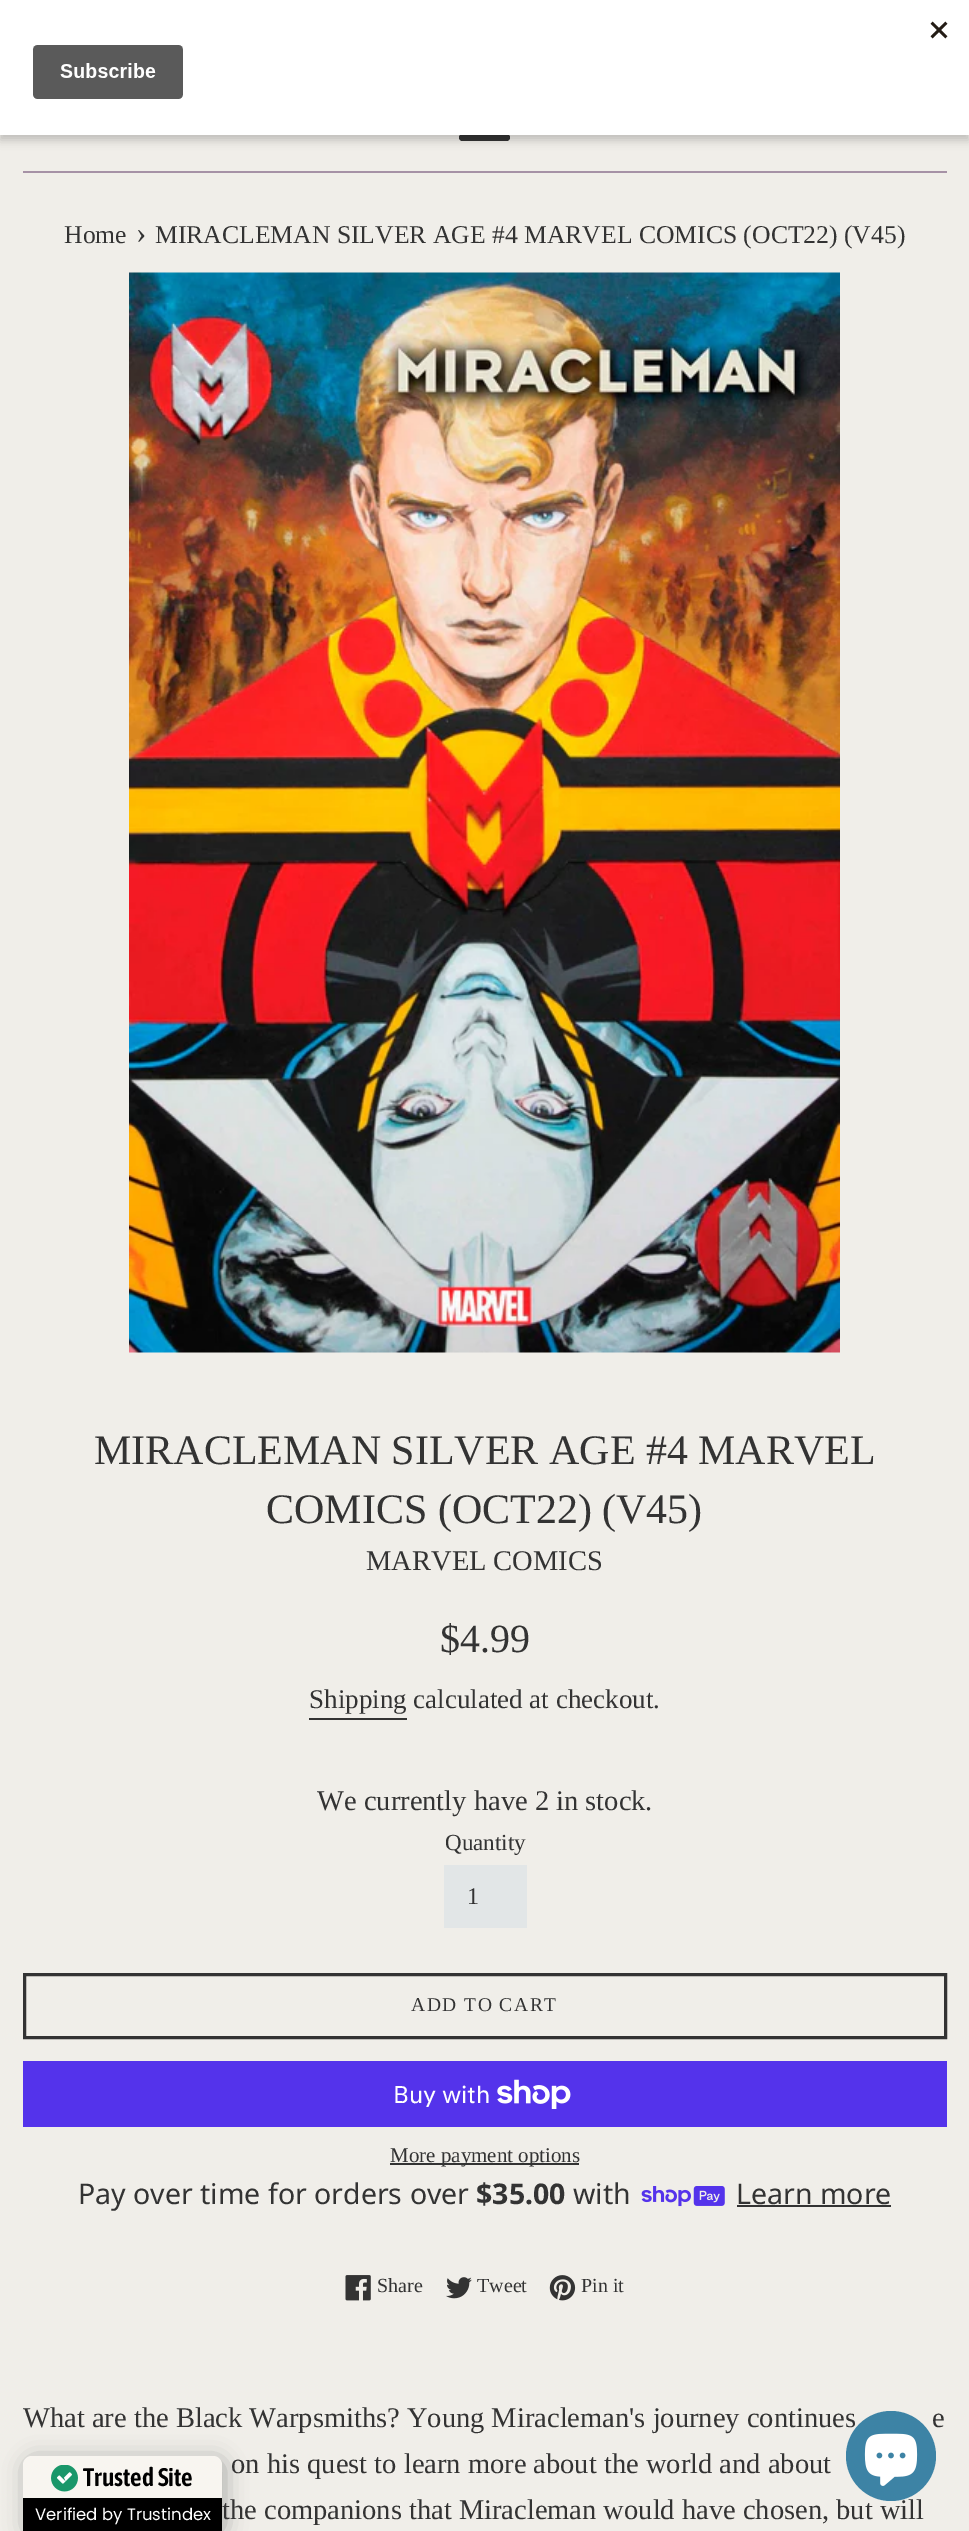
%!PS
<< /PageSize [969 2531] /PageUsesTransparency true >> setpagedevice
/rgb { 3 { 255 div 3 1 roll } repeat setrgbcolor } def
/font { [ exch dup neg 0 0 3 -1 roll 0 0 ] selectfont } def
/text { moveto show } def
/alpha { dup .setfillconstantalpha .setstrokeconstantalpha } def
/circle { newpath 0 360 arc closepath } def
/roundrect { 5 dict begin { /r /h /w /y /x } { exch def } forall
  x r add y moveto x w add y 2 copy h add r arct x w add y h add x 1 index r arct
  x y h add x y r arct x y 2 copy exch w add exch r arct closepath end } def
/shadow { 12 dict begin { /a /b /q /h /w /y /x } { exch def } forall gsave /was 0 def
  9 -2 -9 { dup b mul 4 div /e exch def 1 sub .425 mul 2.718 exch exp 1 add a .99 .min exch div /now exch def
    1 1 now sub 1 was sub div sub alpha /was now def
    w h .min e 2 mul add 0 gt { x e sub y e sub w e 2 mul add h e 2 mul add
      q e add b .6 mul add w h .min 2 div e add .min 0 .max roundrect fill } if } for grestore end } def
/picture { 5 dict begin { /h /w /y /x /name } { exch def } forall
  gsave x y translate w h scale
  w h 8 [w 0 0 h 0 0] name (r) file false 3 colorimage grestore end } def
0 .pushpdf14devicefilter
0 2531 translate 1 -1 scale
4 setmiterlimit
240 238 233 rgb
0 0 969 2531 rectfill
51 51 51 rgb
459 134 51 7 3.5 roundrect fill
0 0 0 rgb
0 5 969 135 0 4.5 0.2 shadow
255 255 255 rgb
0 0 969 135 rectfill
(img_01.rgb) 32 21 916 78 picture
166 146 166 rgb
23 171 924 2 rectfill
(img_02.rgb) 129 272 711 1081 picture
51 51 51 rgb
309 1718 98 2 rectfill
226 230 231 rgb
444 1865 83 63 rectfill
51 51 51 rgb
3 setlinewidth
24.5 1974.5 921 63 rectstroke
84 51 235 rgb
23 2061 924 66 rectfill
(img_03.rgb) 497 2079 74 30 picture
51 51 51 rgb
390 2163 189 2 rectfill
(img_04.rgb) 641 2186 84 21 picture
737 2205 154 2 rectfill
(img_05.rgb) 345 2275 26 26 picture
(img_06.rgb) 446 2277 26 22 picture
(img_07.rgb) 549 2275 27 26 picture
0 0 0 rgb
26 2459 199 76 9 11 0.3 shadow
248 245 240 rgb
32 2456 moveto 181 0 rlineto 5 0 9 4 9 9 rcurveto 0 33 rlineto -199 0 rlineto 0 -33 rlineto 0 -5 4 -9 9 -9 rcurveto closepath fill
(img_08.rgb) 51 2465 27 27 picture
0 0 0 rgb
23 2498 199 33 rectfill
/LiberationSerif-Regular 25.65 font
51 51 51 rgb
(Home) 64 243 text
/LiberationSerif-Regular 31 font
(›) 136 243 text
/LiberationSerif-Regular 25.65 font
(MIRACLEMAN SILVER AGE #4 MARVEL COMICS \(OCT22\) \(V45\)) 155 243 text
/LiberationSerif-Regular 42 font
(MIRACLEMAN SILVER AGE #4) 94 1464 text
(MARVEL) 698 1464 text
(COMICS \(OCT22\) \(V45\)) 266 1523 text
/LiberationSerif-Regular 28.5 font
(MARVEL COMICS) 366 1570 text
/LiberationSerif-Regular 40 font
($4.99) 440 1652 text
/LiberationSerif-Regular 27 font
(Shipping calculated at checkout.) 309 1708 text
/LiberationSerif-Regular 28.5 font
(We currently have 2 in stock.) 317 1810 text
/LiberationSerif-Regular 23 font
(Quantity) 445 1850 text
/LiberationSerif-Regular 24 font
(1) 467 1904 text
/LiberationSerif-Regular 19.5 font
411 2011 moveto 1.5 0 (ADD TO CART) ashow
/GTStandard-Regular 24 font
255 255 255 rgb
(Buy with) 393 2103 text
/LiberationSerif-Regular 21 font
51 51 51 rgb
(More payment options) 390 2162 text
/NotoSans-Regular 28.5 font
(Pay over time for orders over) 78 2204 text
/NotoSans-Bold 28.5 font
($35.00) 476 2204 text
/NotoSans-Regular 28.5 font
(with) 573 2204 text
(Learn more) 736 2204 text
/LiberationSerif-Regular 20 font
(Share) 377 2292 text
(Tweet) 477 2292 text
(Pin it) 581 2292 text
/LiberationSerif-Regular 28.5 font
(What are the Black Warpsmiths? Young Miracleman's journey continues) 23 2427 text
(e) 932 2427 text
(on his quest to learn more about the world and about) 231 2473 text
(the companions that Miracleman would have chosen, but will) 222 2519 text
/AsapCondensed-SemiBold 25.5 font
0 0 0 rgb
(Trusted Site) 83 2486 text
/Poppins-Regular 16.5 font
255 255 255 rgb
(Verified by Trustindex) 35 2520 text
61 131 165 rgb
891 2456 45 circle fill
(img_09.rgb) 864 2433 54 53 picture
.poppdf14devicefilter showpage
